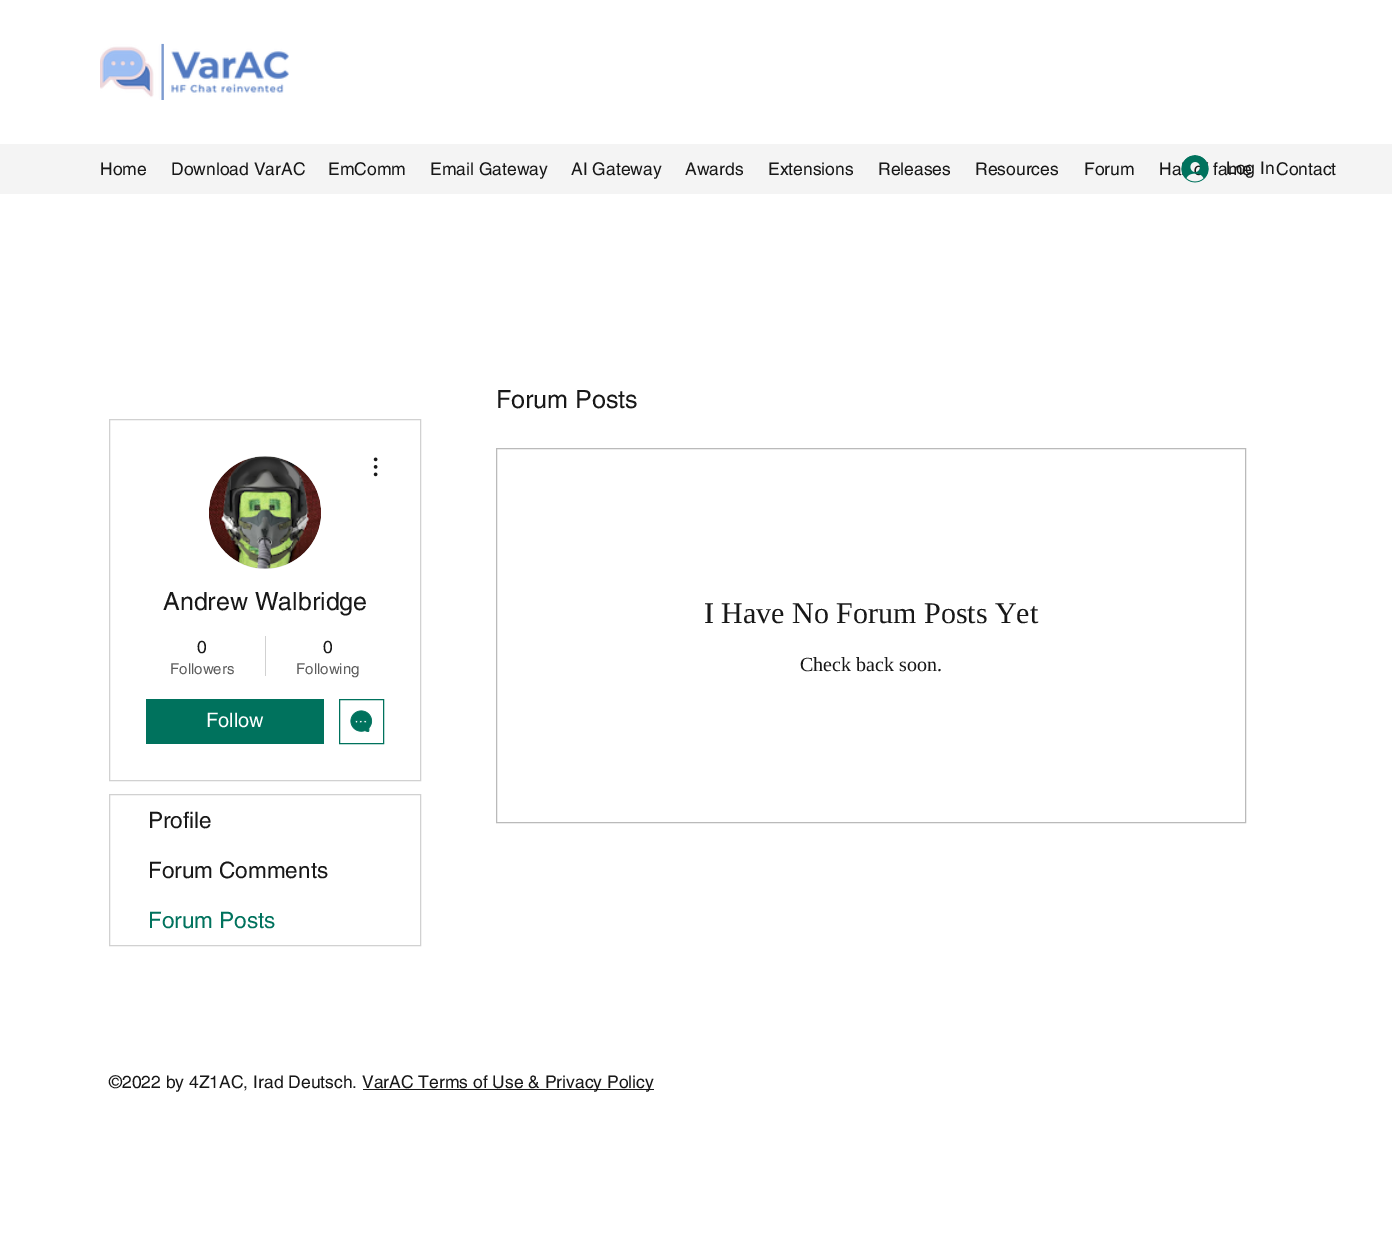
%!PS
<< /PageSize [1392 1259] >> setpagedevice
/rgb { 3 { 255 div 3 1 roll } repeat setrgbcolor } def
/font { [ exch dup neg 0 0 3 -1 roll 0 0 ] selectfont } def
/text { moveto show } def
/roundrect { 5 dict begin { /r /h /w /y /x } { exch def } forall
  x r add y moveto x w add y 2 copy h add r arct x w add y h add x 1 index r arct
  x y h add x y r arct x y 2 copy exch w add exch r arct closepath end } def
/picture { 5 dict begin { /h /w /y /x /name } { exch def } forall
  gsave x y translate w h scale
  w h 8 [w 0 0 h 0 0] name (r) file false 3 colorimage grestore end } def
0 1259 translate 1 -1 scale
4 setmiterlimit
255 255 255 rgb
0 0 1392 1259 rectfill
(img_01.rgb) 100 43 189 57 picture
244 244 244 rgb
0 144 1392 50 rectfill
(img_02.rgb) 1181 155 28 28 picture
186 186 186 rgb
496.5 448.5 749 374 rectstroke
209 209 209 rgb
109.5 419.5 311 361 rectstroke
216 216 216 rgb
209 456 112 113 56 roundrect fill
(img_03.rgb) 209 456 112 113 picture
(img_04.rgb) 373 457 5 20 picture
209 209 209 rgb
265 636 1 40 rectfill
0 114 93 rgb
146 699 178 45 rectfill
339.5 699.5 44 44 rectstroke
(img_05.rgb) 350 710 23 22 picture
209 209 209 rgb
109.5 794.5 311 151 rectstroke
24 24 24 rgb
363 1089 291 1 rectfill
/helvetica-Regular 17.5 font
(Home) 100 175 text
(Download VarAC) 171 175 text
(EmComm) 328 175 text
(Email Gateway) 430 175 text
(AI Gateway) 571 175 text
(Awards) 685 175 text
(Extensions) 768 175 text
(Releases) 878 175 text
(Resources) 975 175 text
(Forum) 1084 175 text
(Ha) 1159 175 text
(fame) 1213 175 text
(Log In) 1226 174 text
(Contact) 1276 175 text
/helvetica-Regular 25 font
(Forum Posts) 496 408 text
/LiberationSerif-Regular 30 font
(I Have No Forum Posts Yet) 704 623 text
/LiberationSerif-Regular 20 font
(Check back soon.) 800 671 text
/helvetica-Regular 25 font
(Andrew Walbridge) 163 610 text
/helvetica-Regular 17.5 font
(0) 197 653 text
/helvetica-Regular 15 font
93 93 93 rgb
(Followers) 170 674 text
/helvetica-Regular 17.5 font
24 24 24 rgb
(0) 323 653 text
/helvetica-Regular 15 font
93 93 93 rgb
(Following) 296 674 text
/helvetica-Regular 20 font
255 255 255 rgb
(Follow) 206 727 text
/helvetica-Regular 22.5 font
24 24 24 rgb
(Profile) 148 828 text
(Forum Comments) 148 878 text
0 114 93 rgb
(Forum Posts) 148 928 text
/helvetica-Regular 17.5 font
24 24 24 rgb
(©2022 by 4Z1AC, Irad Deutsch.) 109 1088 text
(VarAC Terms of Use & Privacy Policy) 362 1088 text
showpage
